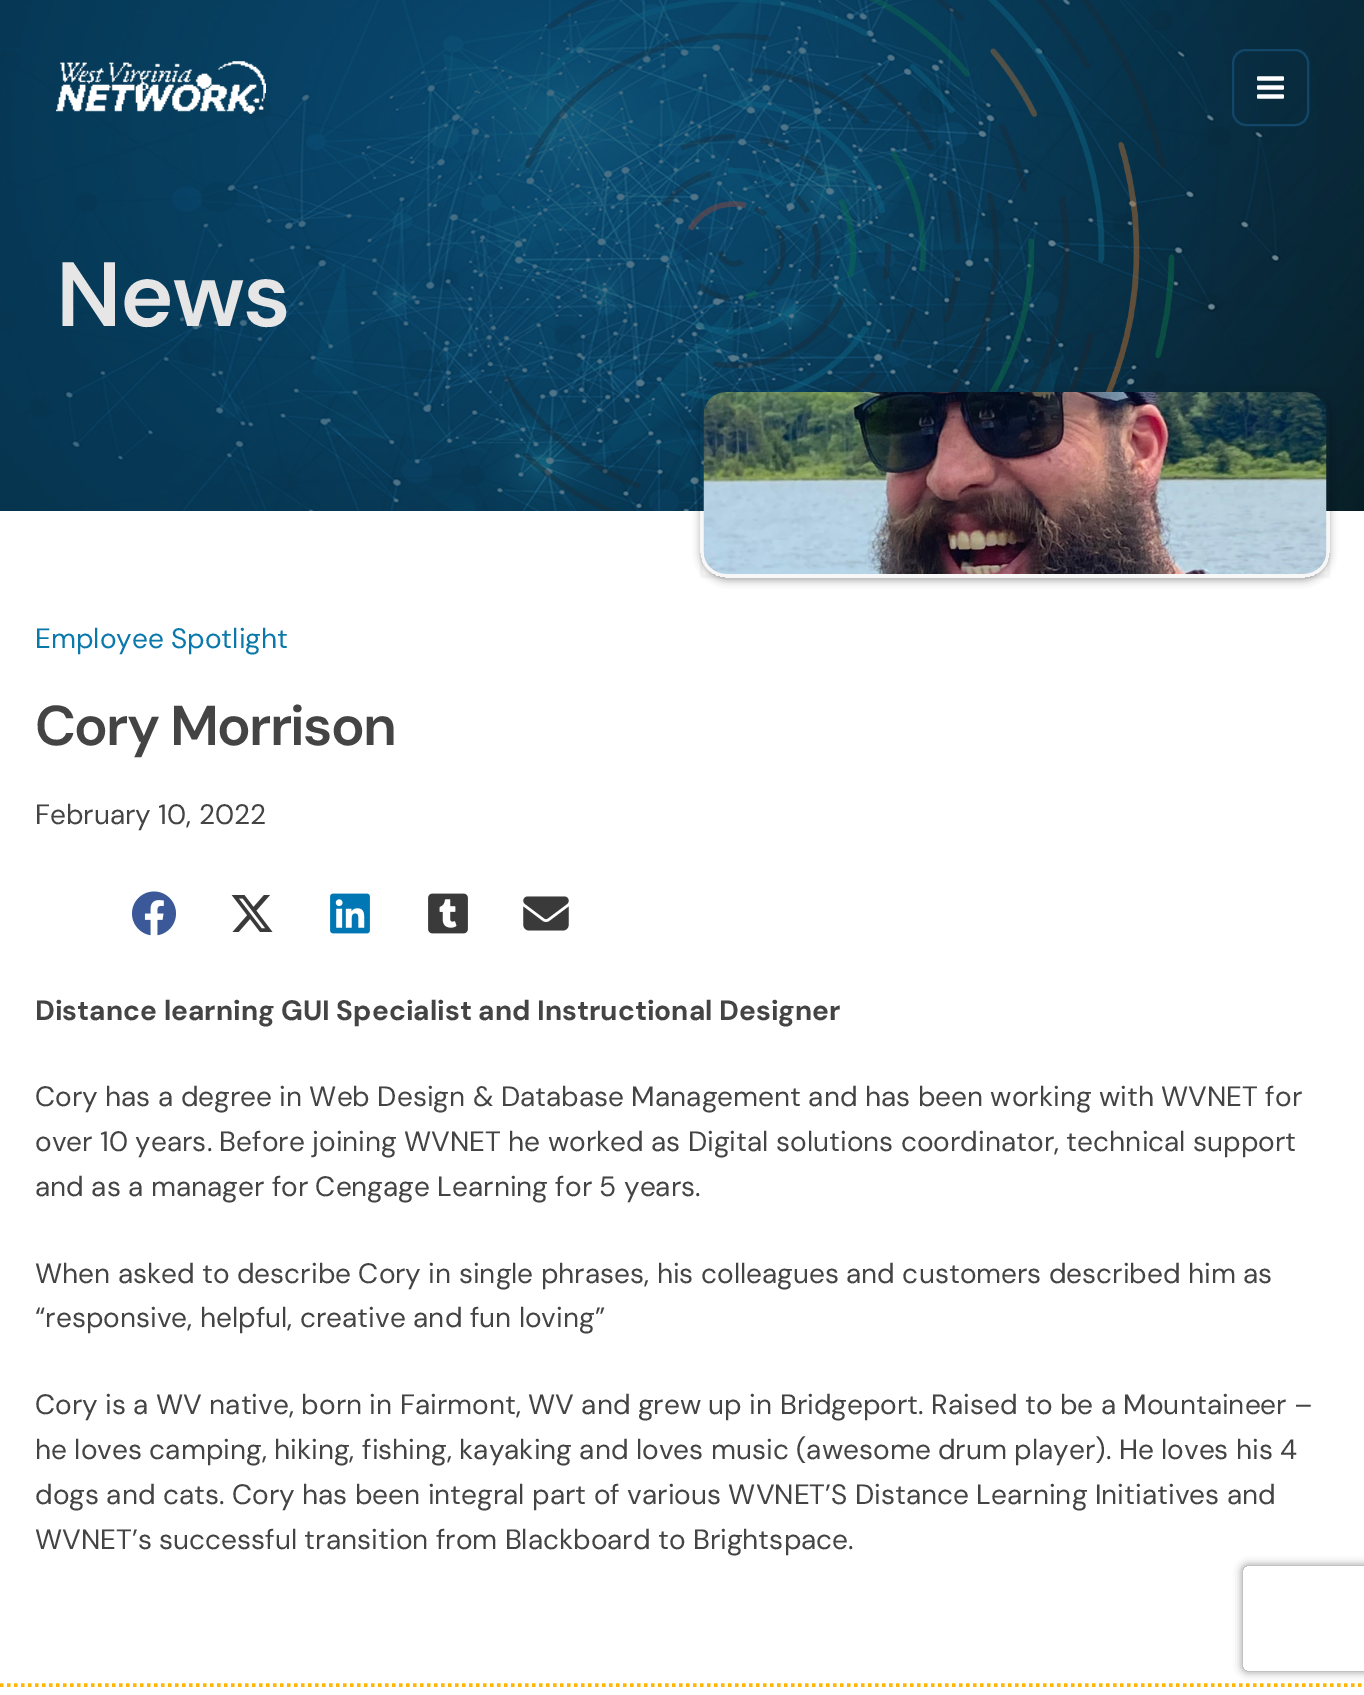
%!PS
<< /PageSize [1364 1695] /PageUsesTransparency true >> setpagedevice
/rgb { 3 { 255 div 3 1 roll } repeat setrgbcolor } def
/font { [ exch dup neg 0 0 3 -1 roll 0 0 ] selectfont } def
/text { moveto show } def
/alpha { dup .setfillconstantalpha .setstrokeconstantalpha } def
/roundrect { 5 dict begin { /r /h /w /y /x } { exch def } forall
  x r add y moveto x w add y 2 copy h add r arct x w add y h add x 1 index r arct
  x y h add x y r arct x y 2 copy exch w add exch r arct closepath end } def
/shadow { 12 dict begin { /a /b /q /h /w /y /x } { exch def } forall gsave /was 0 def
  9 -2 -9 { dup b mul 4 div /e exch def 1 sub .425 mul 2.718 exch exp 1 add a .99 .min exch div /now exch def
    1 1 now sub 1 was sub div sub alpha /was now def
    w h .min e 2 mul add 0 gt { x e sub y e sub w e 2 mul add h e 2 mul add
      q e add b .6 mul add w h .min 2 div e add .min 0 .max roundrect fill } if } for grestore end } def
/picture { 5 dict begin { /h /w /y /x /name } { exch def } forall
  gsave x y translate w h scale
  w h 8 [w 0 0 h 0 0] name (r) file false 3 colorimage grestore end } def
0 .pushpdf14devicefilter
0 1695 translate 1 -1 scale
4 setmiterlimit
255 255 255 rgb
0 0 1364 1695 rectfill
(img_03.rgb) 0 0 1364 511 picture
(img_01.rgb) 56 61 210 53 picture
18 71 105 rgb
2 setlinewidth
1233 50 75 75 13 roundrect stroke
(img_02.rgb) 1257 76 27 23 picture
gsave
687 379 moveto 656 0 rlineto 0 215 rlineto -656 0 rlineto closepath 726 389 moveto 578 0 rlineto 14.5 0 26 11.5 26 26 rcurveto 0 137 rlineto 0 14.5 -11.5 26 -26 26 rcurveto -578 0 rlineto -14.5 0 -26 -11.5 -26 -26 rcurveto 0 -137 rlineto 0 -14.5 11.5 -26 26 -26 rcurveto closepath eoclip newpath
0 0 0 rgb
702 394 626 185 25 4.5 0.44 shadow
grestore
0.03 alpha
0 0 0 rgb
4 setlinewidth
702 391 626 185 rectstroke
1 alpha
(img_04.rgb) 703 392 624 182 picture
(img_05.rgb) 131 891 46 45 picture
(img_06.rgb) 231 895 42 37 picture
(img_07.rgb) 330 893 40 41 picture
(img_08.rgb) 428 893 40 41 picture
(img_09.rgb) 523 896 46 35 picture
255 183 3 rgb
3.5 setlinewidth
[3.5 3.5] 0 setdash
0 1685 moveto 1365 0 rlineto stroke
gsave
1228 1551 moveto 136 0 rlineto 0 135 rlineto -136 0 rlineto closepath 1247 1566 moveto 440 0 rlineto 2 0 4 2 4 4 rcurveto 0 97 rlineto 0 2 -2 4 -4 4 rcurveto -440 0 rlineto -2 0 -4 -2 -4 -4 rcurveto 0 -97 rlineto 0 -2 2 -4 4 -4 rcurveto closepath eoclip newpath
128 128 128 rgb
1243 1566 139 105 4 4.5 1 shadow
grestore
/DMSans-SemiBold 91 font
230 230 231 rgb
56 326 moveto -1.75 0 (News) ashow
/DMSans-Regular 28 font
11 120 171 rgb
(Employee Spotlight) 35 648 text
/DMSans-SemiBold 56 font
69 68 68 rgb
35 745 moveto -1.75 0 (Cory Morrison) ashow
/DMSans-Regular 28 font
(February 10, 2022) 35 824 text
/DMSans-Bold 28 font
(Distance learning GUI Specialist and Instructional Designer) 35 1020 text
/DMSans-Regular 28 font
(Cory has a degree in Web Design & Database Management and has been working with WVNET for) 35 1106 text
(over 10 years. Before joining WVNET he worked as Digital solutions coordinator, technical support) 35 1151 text
(and as a manager for Cengage Learning for 5 years.) 35 1196 text
(When asked to describe Cory in single phrases, his colleagues and customers described him as) 35 1283 text
(“responsive, helpful, creative and fun loving”) 35 1327 text
(Cory is a WV native, born in Fairmont, WV and grew up in Bridgeport. Raised to be a Mountaineer –) 35 1414 text
(he loves camping, hiking, fishing, kayaking and loves music \(awesome drum player\). He loves his 4) 35 1459 text
(dogs and cats. Cory has been integral part of various WVNET’S Distance Learning Initiatives and) 35 1504 text
(WVNET’s successful transition from Blackboard to Brightspace.) 35 1549 text
.poppdf14devicefilter showpage
